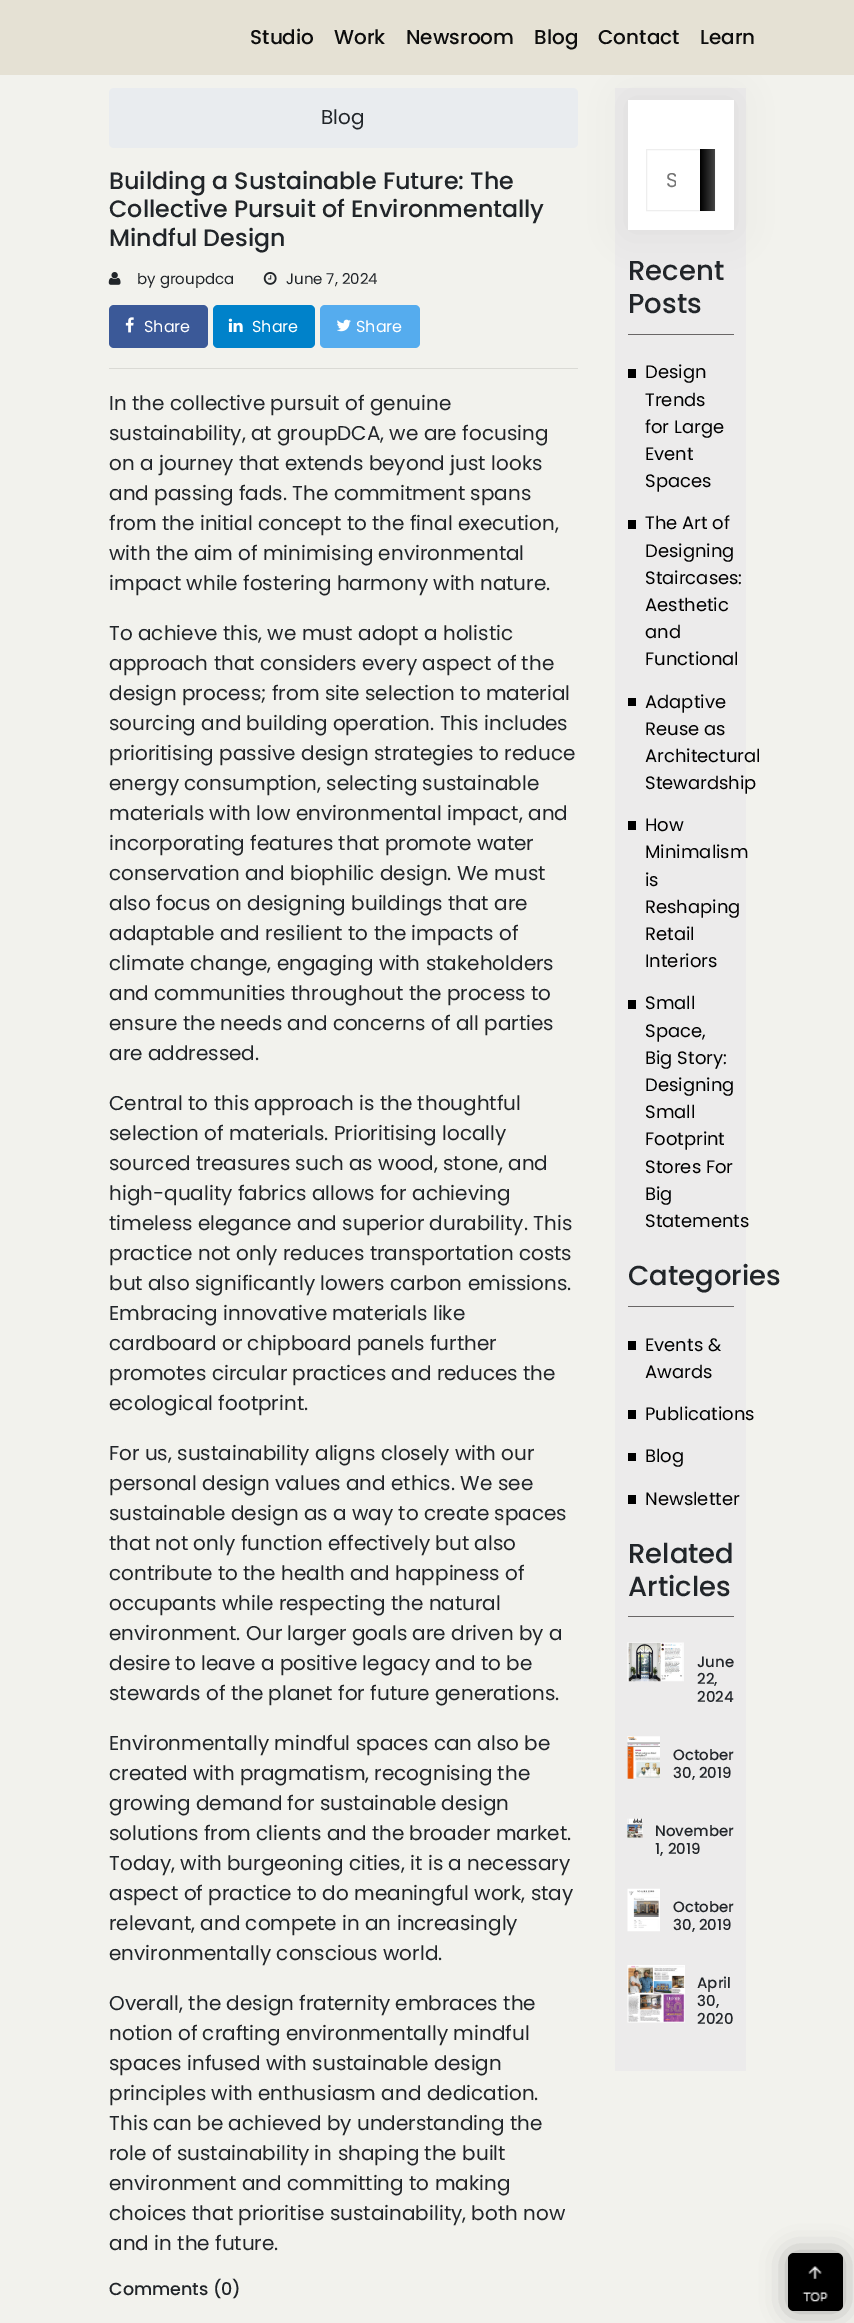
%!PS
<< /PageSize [854 2323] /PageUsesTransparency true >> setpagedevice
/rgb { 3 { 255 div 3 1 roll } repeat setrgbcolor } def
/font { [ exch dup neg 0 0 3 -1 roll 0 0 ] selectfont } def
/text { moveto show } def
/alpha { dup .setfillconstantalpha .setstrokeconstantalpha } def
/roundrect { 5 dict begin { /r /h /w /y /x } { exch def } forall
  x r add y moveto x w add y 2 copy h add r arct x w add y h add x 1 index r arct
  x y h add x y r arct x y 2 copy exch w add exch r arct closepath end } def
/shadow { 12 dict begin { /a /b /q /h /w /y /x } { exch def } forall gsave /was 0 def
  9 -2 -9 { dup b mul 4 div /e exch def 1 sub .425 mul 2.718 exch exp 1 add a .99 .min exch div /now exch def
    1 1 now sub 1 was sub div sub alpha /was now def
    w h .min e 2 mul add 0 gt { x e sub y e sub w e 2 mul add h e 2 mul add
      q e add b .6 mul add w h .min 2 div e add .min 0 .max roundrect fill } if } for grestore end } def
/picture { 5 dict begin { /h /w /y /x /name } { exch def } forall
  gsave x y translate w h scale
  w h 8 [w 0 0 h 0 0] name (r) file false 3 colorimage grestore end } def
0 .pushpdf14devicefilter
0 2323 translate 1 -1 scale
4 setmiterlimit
242 242 237 rgb
0 0 854 2323 rectfill
229 225 212 rgb
0 0 854 75 rectfill
233 236 239 rgb
109 88 469 60 5 roundrect fill
(img_01.rgb) 108 272 13 13 picture
(img_02.rgb) 263 272 14 13 picture
59 89 152 rgb
109 305 99 43 5 roundrect fill
(img_03.rgb) 125 317 9 16 picture
0 130 202 rgb
213 305 102 43 5 roundrect fill
(img_04.rgb) 228 318 15 14 picture
85 172 238 rgb
320 305 100 43 5 roundrect fill
(img_05.rgb) 337 319 14 13 picture
218 218 213 rgb
109 368 469 1 rectfill
236 235 235 rgb
615 88 131 1983 rectfill
102 102 102 rgb
628 100 106 130 0 18 0.1 shadow
255 255 255 rgb
628 100 106 130 rectfill
238 238 238 rgb
646.5 149.5 68 61 rectstroke
gsave 700 149 moveto 15 0 rlineto 0 62 rlineto -15 0 rlineto closepath clip newpath
<< /ShadingType 2 /ColorSpace /DeviceRGB /Coords [700 149 715 149] /Extend [true true] /Function << /FunctionType 2 /Domain [0 1] /C0 [0 0 0] /C1 [0.267 0.267 0.267] /N 1 >> >> shfill grestore
105 102 102 rgb
628 334 106 1 rectfill
0 0 0 rgb
628 369 8 9 rectfill
628 520 8 9 rectfill
628 698 8 8 rectfill
628 821 8 9 rectfill
628 1000 8 9 rectfill
105 102 102 rgb
628 1306 106 1 rectfill
0 0 0 rgb
628 1341 8 9 rectfill
628 1410 8 9 rectfill
628 1453 8 8 rectfill
628 1495 8 9 rectfill
105 102 102 rgb
628 1616 106 1 rectfill
(img_06.rgb) 627 1642 57 40 picture
(img_07.rgb) 627 1736 33 43 picture
(img_08.rgb) 627 1818 16 20 picture
(img_09.rgb) 627 1888 33 44 picture
(img_10.rgb) 627 1965 58 58 picture
0 0 0 rgb
788 2253 55 58 6 13 0.3 shadow
788 2253 55 58 6 roundrect fill
(img_11.rgb) 802 2266 26 36 picture
/Poppins-Medium 20 font
13 13 13 rgb
(Studio) 250 44 text
(Work) 334 44 text
(Newsroom) 406 44 text
(Blog) 534 44 text
(Contact) 598 44 text
(Learn) 700 44 text
/Poppins-Regular 20 font
33 37 41 rgb
(Blog) 321 124 text
/Poppins-Medium 23.75 font
(Building a Sustainable Future: The) 109 189 text
(Collective Pursuit of Environmentally) 109 217 text
(Mindful Design) 109 246 text
/Poppins-Regular 15 font
(by groupdca) 137 284 text
(June 7, 2024) 286 284 text
/Poppins-Regular 16 font
255 255 255 rgb
(Share) 144 332 text
(Share) 252 332 text
(Share) 356 332 text
/Poppins-Regular 20 font
33 37 41 rgb
(In the collective pursuit of genuine) 109 410 text
(sustainability, at groupDCA, we are focusing) 109 440 text
(on a journey that extends beyond just looks) 109 470 text
(and passing fads. The commitment spans) 109 500 text
(from the initial concept to the final execution,) 109 530 text
(with the aim of minimising environmental) 109 560 text
(impact while fostering harmony with nature.) 109 590 text
(To achieve this, we must adopt a holistic) 109 640 text
(approach that considers every aspect of the) 109 670 text
(design process; from site selection to material) 109 700 text
(sourcing and building operation. This includes) 109 730 text
(prioritising passive design strategies to reduce) 109 760 text
(energy consumption, selecting sustainable) 109 790 text
(materials with low environmental impact, and) 109 820 text
(incorporating features that promote water) 109 850 text
(conservation and biophilic design. We must) 109 880 text
(also focus on designing buildings that are) 109 910 text
(adaptable and resilient to the impacts of) 109 940 text
(climate change, engaging with stakeholders) 109 970 text
(and communities throughout the process to) 109 1000 text
(ensure the needs and concerns of all parties) 109 1030 text
(are addressed.) 109 1060 text
(Central to this approach is the thoughtful) 109 1110 text
(selection of materials. Prioritising locally) 109 1140 text
(sourced treasures such as wood, stone, and) 109 1170 text
(high-quality fabrics allows for achieving) 109 1200 text
(timeless elegance and superior durability. This) 109 1230 text
(practice not only reduces transportation costs) 109 1260 text
(but also significantly lowers carbon emissions.) 109 1290 text
(Embracing innovative materials like) 109 1320 text
(cardboard or chipboard panels further) 109 1350 text
(promotes circular practices and reduces the) 109 1380 text
(ecological footprint.) 109 1410 text
(For us, sustainability aligns closely with our) 109 1460 text
(personal design values and ethics. We see) 109 1490 text
(sustainable design as a way to create spaces) 109 1520 text
(that not only function effectively but also) 109 1550 text
(contribute to the health and happiness of) 109 1580 text
(occupants while respecting the natural) 109 1610 text
(environment. Our larger goals are driven by a) 109 1640 text
(desire to leave a positive legacy and to be) 109 1670 text
(stewards of the planet for future generations.) 109 1700 text
(Environmentally mindful spaces can also be) 109 1750 text
(created with pragmatism, recognising the) 109 1780 text
(growing demand for sustainable design) 109 1810 text
(solutions from clients and the broader market.) 109 1840 text
(Today, with burgeoning cities, it is a necessary) 109 1870 text
(aspect of practice to do meaningful work, stay) 109 1900 text
(relevant, and compete in an increasingly) 109 1930 text
(environmentally conscious world.) 109 1960 text
(Overall, the design fraternity embraces the) 109 2010 text
(notion of crafting environmentally mindful) 109 2040 text
(spaces infused with sustainable design) 109 2070 text
(principles with enthusiasm and dedication.) 109 2100 text
(This can be achieved by understanding the) 109 2130 text
(role of sustainability in shaping the built) 109 2160 text
(environment and committing to making) 109 2190 text
(choices that prioritise sustainability, both now) 109 2220 text
(and in the future.) 109 2250 text
/Poppins-Medium 17.5 font
(Comments \(0\)) 109 2295 text
gsave
666 165 10 31 rectclip
/Poppins-Regular 20 font
117 117 117 rgb
(S) 666 187 text
grestore
/Poppins-Medium 27.5 font
(Recent) 628 280 text
(Posts) 628 313 text
/Poppins-Regular 18 font
0 0 0 rgb
(Design) 645 378 text
(Trends) 645 406 text
(for Large) 645 433 text
(Event) 645 460 text
(Spaces) 645 487 text
(The Art of) 645 529 text
(Designing) 645 557 text
(Staircases:) 645 584 text
(Aesthetic) 645 611 text
(and) 645 638 text
(Functional) 645 665 text
(Adaptive) 645 708 text
(Reuse as) 645 735 text
(Architectural) 645 762 text
(Stewardship) 645 789 text
(How) 645 831 text
(Minimalism) 645 858 text
(is) 645 886 text
(Reshaping) 645 913 text
(Retail) 645 940 text
(Interiors) 645 967 text
(Small) 645 1009 text
(Space,) 645 1037 text
(Big Story:) 645 1064 text
(Designing) 645 1091 text
(Small) 645 1118 text
(Footprint) 645 1145 text
(Stores For) 645 1173 text
(Big) 645 1200 text
(Statements) 645 1227 text
/Poppins-Medium 27.5 font
33 37 41 rgb
(Categories) 628 1285 text
/Poppins-Regular 18 font
0 0 0 rgb
(Events &) 645 1351 text
(Awards) 645 1378 text
(Publications) 645 1420 text
(Blog) 645 1462 text
(Newsletter) 645 1505 text
/Poppins-Medium 27.5 font
33 37 41 rgb
(Related) 628 1563 text
(Articles) 628 1596 text
/Poppins-Medium 15 font
(June) 697 1667 text
(22,) 697 1684 text
(2024) 697 1702 text
(October) 673 1760 text
(30, 2019) 673 1778 text
(November) 655 1836 text
(1, 2019) 655 1854 text
(October) 673 1912 text
(30, 2019) 673 1930 text
(April) 697 1988 text
(30,) 697 2006 text
(2020) 697 2024 text
.poppdf14devicefilter showpage
